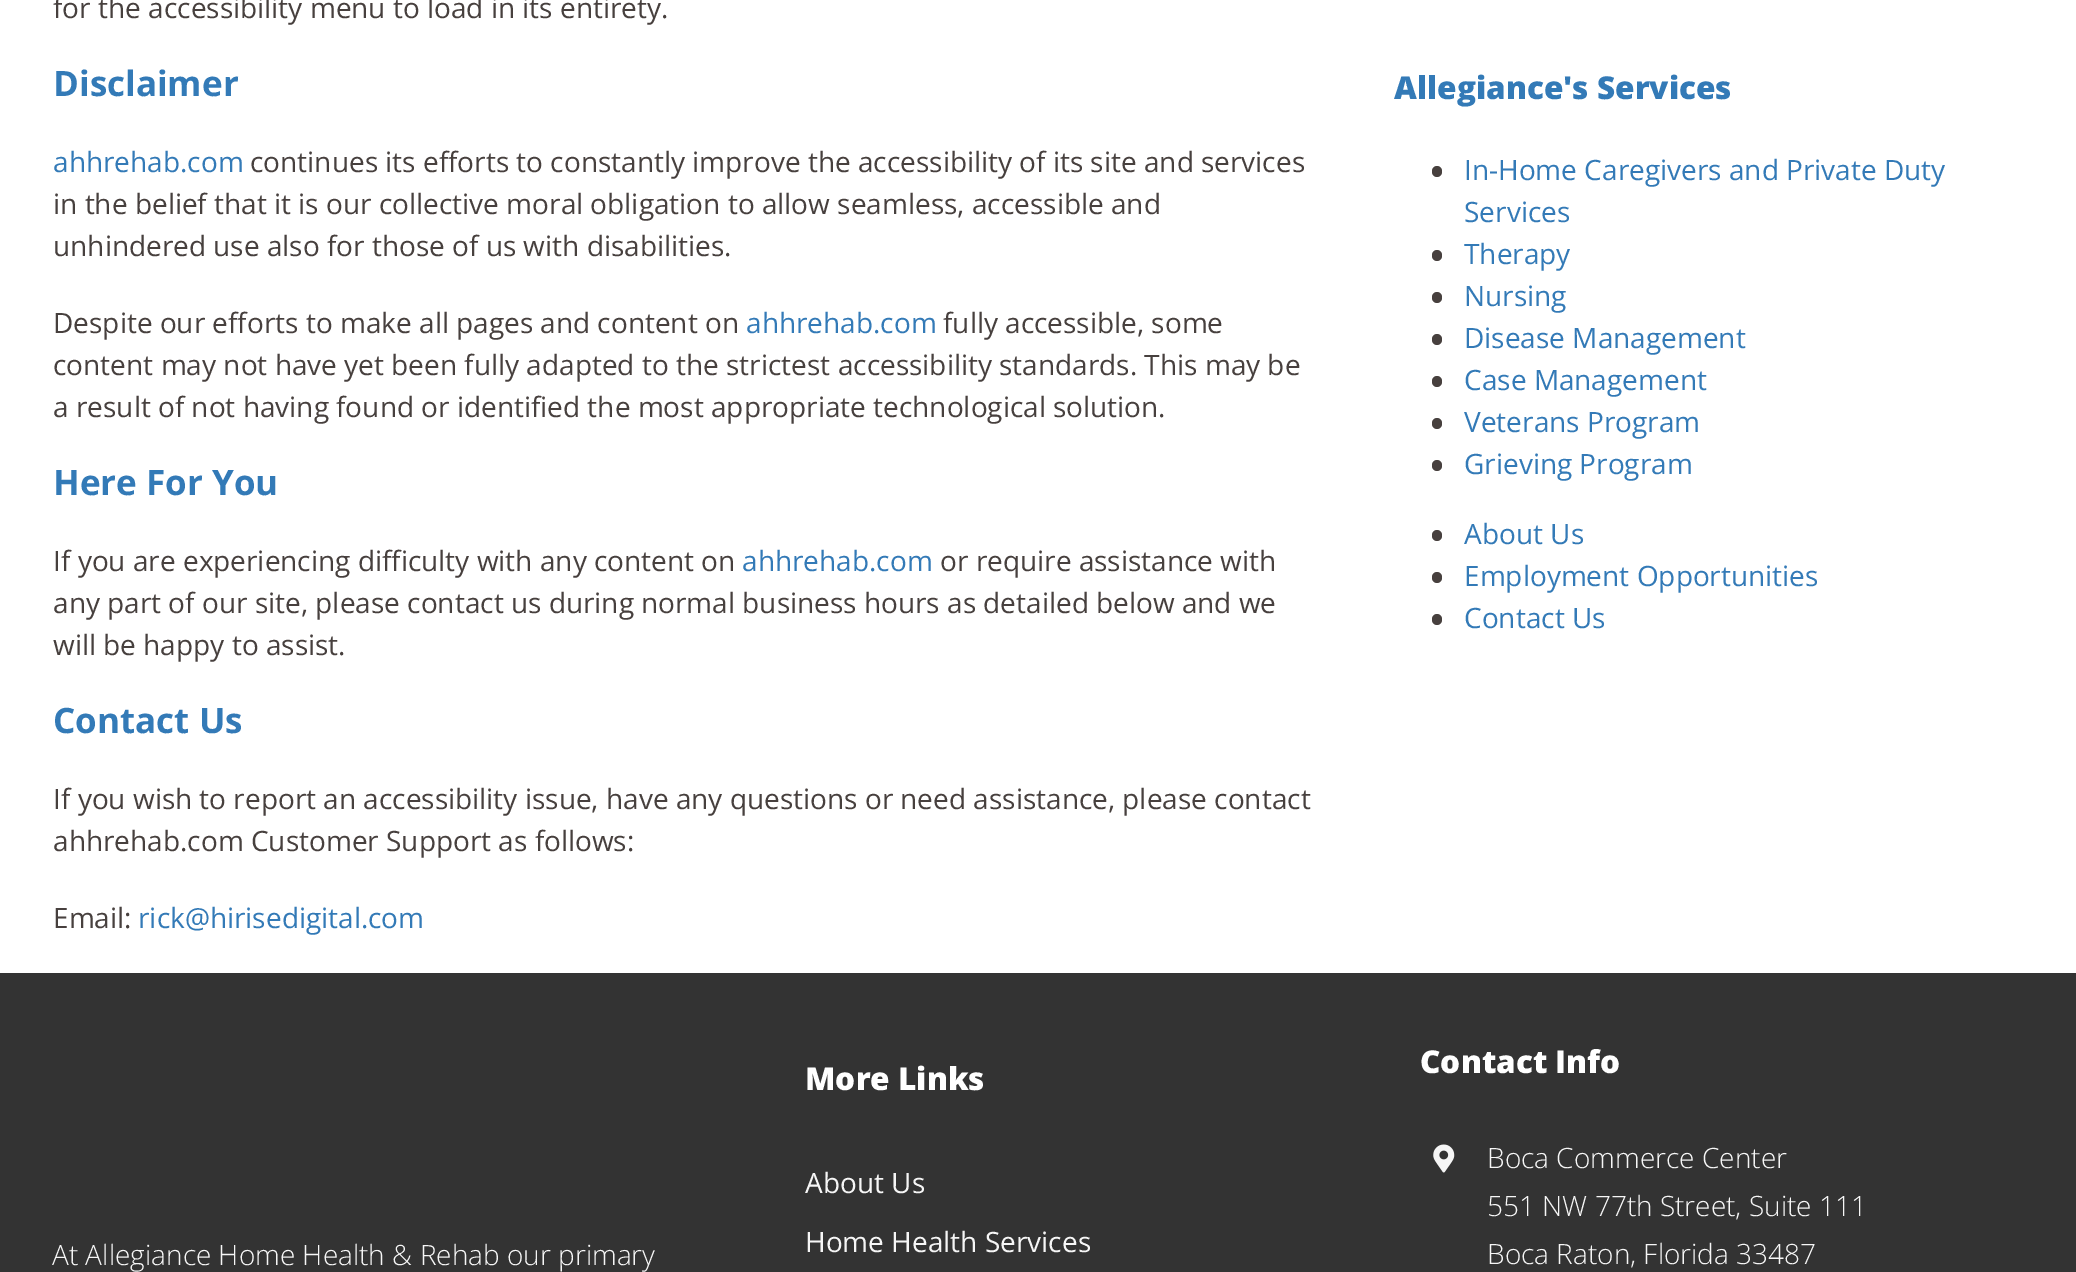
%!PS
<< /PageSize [2076 1272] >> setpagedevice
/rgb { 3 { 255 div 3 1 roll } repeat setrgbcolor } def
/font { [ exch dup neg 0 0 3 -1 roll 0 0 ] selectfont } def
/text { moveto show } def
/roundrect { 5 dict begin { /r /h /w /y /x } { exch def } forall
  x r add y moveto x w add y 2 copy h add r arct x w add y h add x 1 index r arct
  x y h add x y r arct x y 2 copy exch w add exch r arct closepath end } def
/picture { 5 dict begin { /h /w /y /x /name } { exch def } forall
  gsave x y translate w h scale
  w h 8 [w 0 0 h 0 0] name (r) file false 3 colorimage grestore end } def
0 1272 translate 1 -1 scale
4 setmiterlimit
255 255 255 rgb
0 0 2076 1272 rectfill
71 64 62 rgb
1432 166 10 11 5 roundrect fill
1432 250 10 11 5 roundrect fill
1432 292 10 11 5 roundrect fill
1432 334 10 11 5 roundrect fill
1432 376 10 11 5 roundrect fill
1432 418 10 11 5 roundrect fill
1432 460 10 11 5 roundrect fill
1432 530 10 11 5 roundrect fill
1432 572 10 11 5 roundrect fill
1432 614 10 11 5 roundrect fill
51 51 51 rgb
0 973 2076 299 rectfill
(img_01.rgb) 1433 1144 22 29 picture
/OpenSans-Regular 28 font
71 64 62 rgb
(for the accessibility menu to load in its entirety.) 53 18 text
/OpenSans-Bold 35 font
51 122 183 rgb
(Disclaimer) 53 96 text
/OpenSans-Regular 28 font
(ahhrehab.com) 53 172 text
71 64 62 rgb
(continues its efforts to constantly improve the accessibility of its site and services) 250 172 text
(in the belief that it is our collective moral obligation to allow seamless, accessible and) 53 214 text
(unhindered use also for those of us with disabilities.) 53 256 text
(Despite our efforts to make all pages and content on) 53 333 text
51 122 183 rgb
(ahhrehab.com) 746 333 text
71 64 62 rgb
(fully accessible, some) 943 333 text
(content may not have yet been fully adapted to the strictest accessibility standards. This may be) 53 375 text
(a result of not having found or identified the most appropriate technological solution.) 53 417 text
/OpenSans-Bold 35 font
51 122 183 rgb
(Here For You) 53 495 text
/OpenSans-Regular 28 font
71 64 62 rgb
(If you are experiencing difficulty with any content on) 53 571 text
51 122 183 rgb
(ahhrehab.com) 742 571 text
71 64 62 rgb
(or require assistance with) 940 571 text
(any part of our site, please contact us during normal business hours as detailed below and we) 53 613 text
(will be happy to assist.) 53 655 text
/OpenSans-Bold 35 font
51 122 183 rgb
(Contact Us) 53 733 text
/OpenSans-Regular 28 font
71 64 62 rgb
(If you wish to report an accessibility issue, have any questions or need assistance, please contact) 53 809 text
(ahhrehab.com Customer Support as follows:) 53 851 text
(Email:) 53 928 text
51 122 183 rgb
(rick@hirisedigital.com) 138 928 text
/OpenSans-ExtraBold 31.5 font
(Allegiance's Services) 1394 99 text
/OpenSans-Regular 28 font
(In-Home Caregivers and Private Duty) 1464 180 text
(Services) 1464 222 text
(Therapy) 1464 264 text
(Nursing) 1464 306 text
(Disease Management) 1464 348 text
(Case Management) 1464 390 text
(Veterans Program) 1464 432 text
(Grieving Program) 1464 474 text
(About Us) 1464 544 text
(Employment Opportunities) 1464 586 text
(Contact Us) 1464 628 text
/OpenSans-ExtraBold 31.5 font
255 255 255 rgb
(More Links) 805 1090 text
/OpenSans-Regular 28 font
246 246 246 rgb
(About Us) 805 1193 text
(Home Health Services) 805 1252 text
/OpenSans-ExtraBold 31.5 font
255 255 255 rgb
(Contact Info) 1420 1073 text
/OpenSans-Light 28 font
246 246 246 rgb
(Boca Commerce Center) 1487 1168 text
(551 NW 77th Street, Suite 111) 1487 1216 text
(Boca Raton, Florida 33487) 1487 1264 text
(At Allegiance Home Health & Rehab our primary) 52 1265 text
showpage
